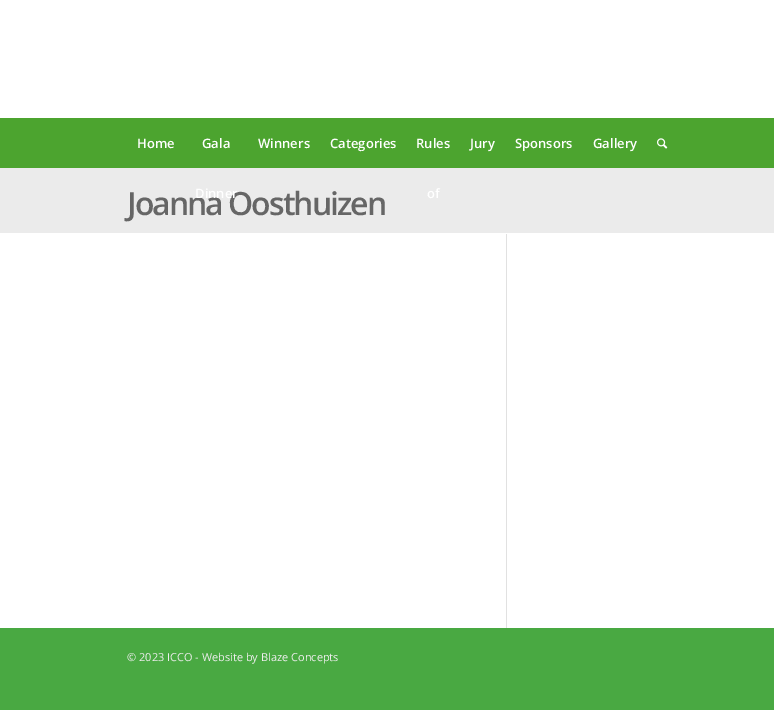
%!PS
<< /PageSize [774 710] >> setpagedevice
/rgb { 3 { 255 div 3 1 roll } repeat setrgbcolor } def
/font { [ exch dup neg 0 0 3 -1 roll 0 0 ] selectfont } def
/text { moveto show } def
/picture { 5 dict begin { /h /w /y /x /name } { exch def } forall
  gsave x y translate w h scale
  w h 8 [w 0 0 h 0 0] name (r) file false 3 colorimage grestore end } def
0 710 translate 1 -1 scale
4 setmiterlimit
73 169 66 rgb
0 0 774 710 rectfill
255 255 255 rgb
0 0 774 628 rectfill
76 164 47 rgb
0 118 774 50 rectfill
(img_01.rgb) 657 138 11 11 picture
235 235 235 rgb
0 168 774 65 rectfill
225 225 225 rgb
506 234 1 394 rectfill
/OpenSans-SemiBold 13 font
255 255 255 rgb
(Home) 137 148 text
(Gala) 202 148 text
(Winners) 258 148 text
(Categories) 330 148 text
(Rules) 416 148 text
(of) 427 198 text
(Jury) 470 148 text
(Sponsors) 515 148 text
(Gallery) 593 148 text
/OpenSans-SemiBold 32 font
102 102 102 rgb
127 215 moveto -2 0 (Joanna Oosthuizen) ashow
/OpenSans-SemiBold 13 font
255 255 255 rgb
(Dinner) 195 198 text
/OpenSans-Regular 11 font
238 238 238 rgb
(© 2023 ICCO - Website by Blaze Concepts) 127 661 text
showpage
